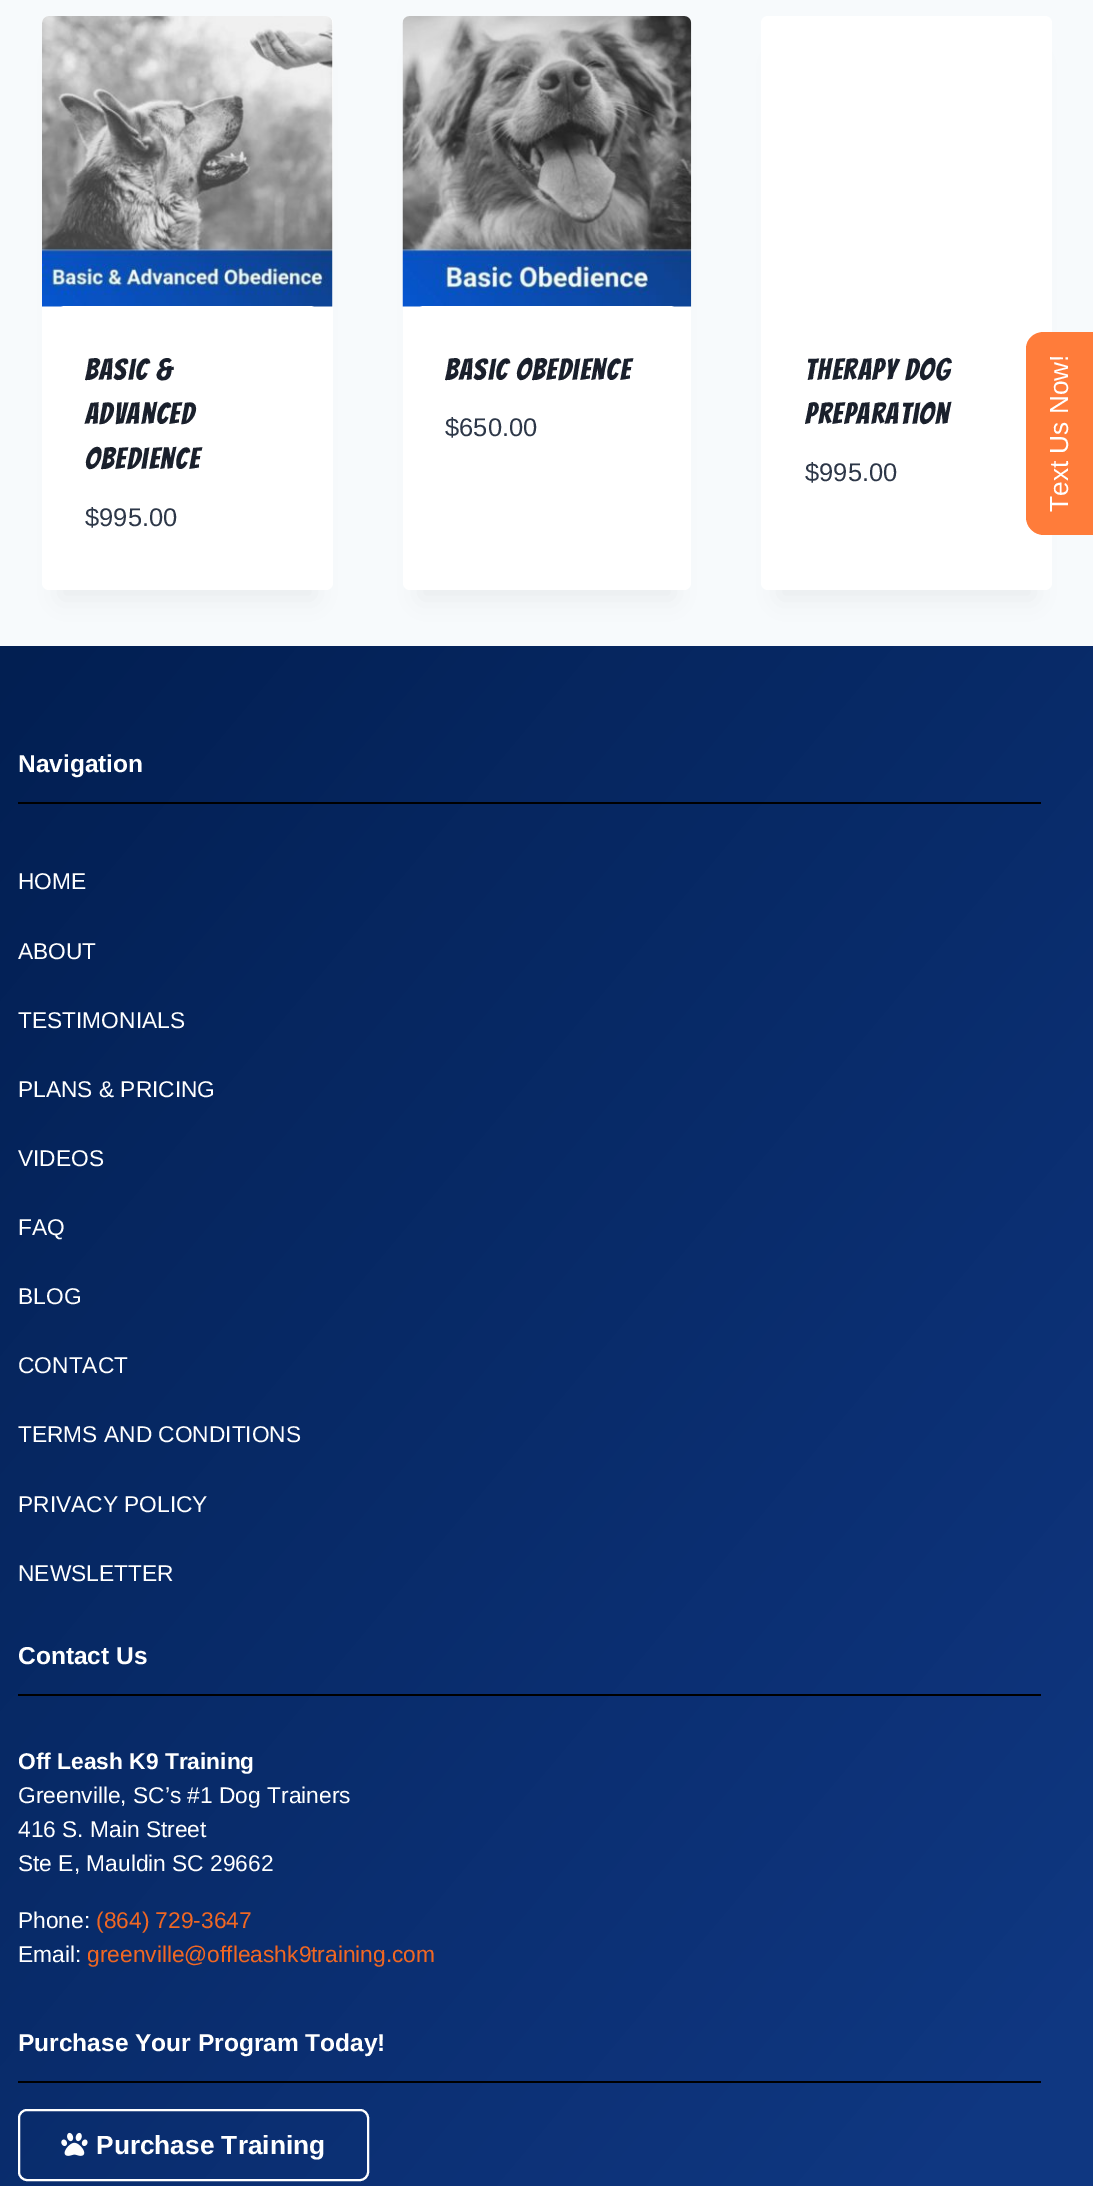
%!PS
<< /PageSize [1093 2186] /PageUsesTransparency true >> setpagedevice
/rgb { 3 { 255 div 3 1 roll } repeat setrgbcolor } def
/font { [ exch dup neg 0 0 3 -1 roll 0 0 ] selectfont } def
/text { moveto show } def
/alpha { dup .setfillconstantalpha .setstrokeconstantalpha } def
/roundrect { 5 dict begin { /r /h /w /y /x } { exch def } forall
  x r add y moveto x w add y 2 copy h add r arct x w add y h add x 1 index r arct
  x y h add x y r arct x y 2 copy exch w add exch r arct closepath end } def
/shadow { 12 dict begin { /a /b /q /h /w /y /x } { exch def } forall gsave /was 0 def
  9 -2 -9 { dup b mul 4 div /e exch def 1 sub .425 mul 2.718 exch exp 1 add a .99 .min exch div /now exch def
    1 1 now sub 1 was sub div sub alpha /was now def
    w h .min e 2 mul add 0 gt { x e sub y e sub w e 2 mul add h e 2 mul add
      q e add b .6 mul add w h .min 2 div e add .min 0 .max roundrect fill } if } for grestore end } def
/picture { 5 dict begin { /h /w /y /x /name } { exch def } forall
  gsave x y translate w h scale
  w h 8 [w 0 0 h 0 0] name (r) file false 3 colorimage grestore end } def
0 .pushpdf14devicefilter
0 2186 translate 1 -1 scale
4 setmiterlimit
247 250 252 rgb
0 0 1093 2186 rectfill
0 0 0 rgb
60 60 255 539 0 13 0.05 shadow
255 255 255 rgb
42 16 291 574 7 roundrect fill
(img_01.rgb) 42 16 291 291 picture
58 306 259 284 7 roundrect fill
0 0 0 rgb
420 60 254 539 0 13 0.05 shadow
255 255 255 rgb
403 16 288 574 7 roundrect fill
(img_02.rgb) 402 16 290 291 picture
417 306 260 195 7 roundrect fill
0 0 0 rgb
779 60 255 539 0 13 0.05 shadow
255 255 255 rgb
761 16 291 574 7 roundrect fill
gsave 0 646 moveto 1093 0 rlineto 0 1540 rlineto -1093 0 rlineto closepath clip newpath
<< /ShadingType 2 /ColorSpace /DeviceRGB /Coords [-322 1029 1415 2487] /Extend [true true] /Function << /FunctionType 3 /Domain [0 1] /Functions [<< /FunctionType 2 /Domain [0 1] /C0 [0.008 0.122 0.322] /C1 [0.059 0.216 0.506] /N 1 >> << /FunctionType 2 /Domain [0 1] /C0 [0.059 0.216 0.506] /C1 [0.059 0.216 0.506] /N 1 >>] /Bounds [0.75] /Encode [0 1 0 1] >> >> shfill grestore
0 0 0 rgb
18 802 1023 2 rectfill
18 1694 1023 2 rectfill
18 2081 1023 2 rectfill
255 255 255 rgb
2 setlinewidth
19 2110 349 70 8 roundrect stroke
(img_03.rgb) 61 2132 27 24 picture
255 124 58 rgb
1026 517 moveto 0 -168 rlineto 0 -10 8 -17 18 -17 rcurveto 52 0 rlineto 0 203 rlineto -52 0 rlineto -10 0 -18 -8 -18 -18 rcurveto closepath fill
/Bangers-Regular 29.75 font
26 32 44 rgb
85 380 moveto 1.4 0 (Basic &) ashow
85 424 moveto 1.4 0 (Advanced) ashow
85 469 moveto 1.4 0 (Obedience) ashow
/LiberationSans-Regular 25.5 font
45 55 72 rgb
($995.00) 85 526 text
/Bangers-Regular 29.75 font
26 32 44 rgb
445 380 moveto 1.4 0 (Basic Obedience) ashow
/LiberationSans-Regular 25.5 font
45 55 72 rgb
($650.00) 445 436 text
/Bangers-Regular 29.75 font
26 32 44 rgb
805 380 moveto 1.4 0 (Therapy Dog) ashow
805 424 moveto 1.4 0 (Preparation) ashow
/LiberationSans-Regular 25.5 font
45 55 72 rgb
($995.00) 805 481 text
/LiberationSans-Bold 24.5 font
255 255 255 rgb
(Navigation) 18 772 text
/LiberationSans-Regular 22.75 font
(HOME) 18 889 text
(ABOUT) 18 959 text
(TESTIMONIALS) 18 1028 text
(PLANS & PRICING) 18 1097 text
(VIDEOS) 18 1166 text
(FAQ) 18 1235 text
(BLOG) 18 1304 text
(CONTACT) 18 1373 text
(TERMS AND CONDITIONS) 18 1442 text
(PRIVACY POLICY) 18 1512 text
(NEWSLETTER) 18 1581 text
/LiberationSans-Bold 24.5 font
(Contact Us) 18 1664 text
/LiberationSans-Bold 22.75 font
(Off Leash K9 Training) 18 1769 text
/LiberationSans-Regular 22.75 font
(Greenville, SC’s #1 Dog Trainers) 18 1803 text
(416 S. Main Street) 18 1837 text
(Ste E, Mauldin SC 29662) 18 1871 text
(Phone:) 18 1928 text
241 103 34 rgb
(\(864\) 729-3647) 96 1928 text
255 255 255 rgb
(Email:) 18 1962 text
241 103 34 rgb
(greenville@offleashk9training.com) 87 1962 text
/LiberationSans-Bold 24.5 font
255 255 255 rgb
(Purchase Your Program Today!) 18 2051 text
/LiberationSans-Bold 26.25 font
(Purchase Training) 96 2154 text
/LiberationSans-Regular 26.25 font
gsave 1068 512 translate -90 rotate 0 0 moveto (Text Us Now!) show grestore
.poppdf14devicefilter showpage
